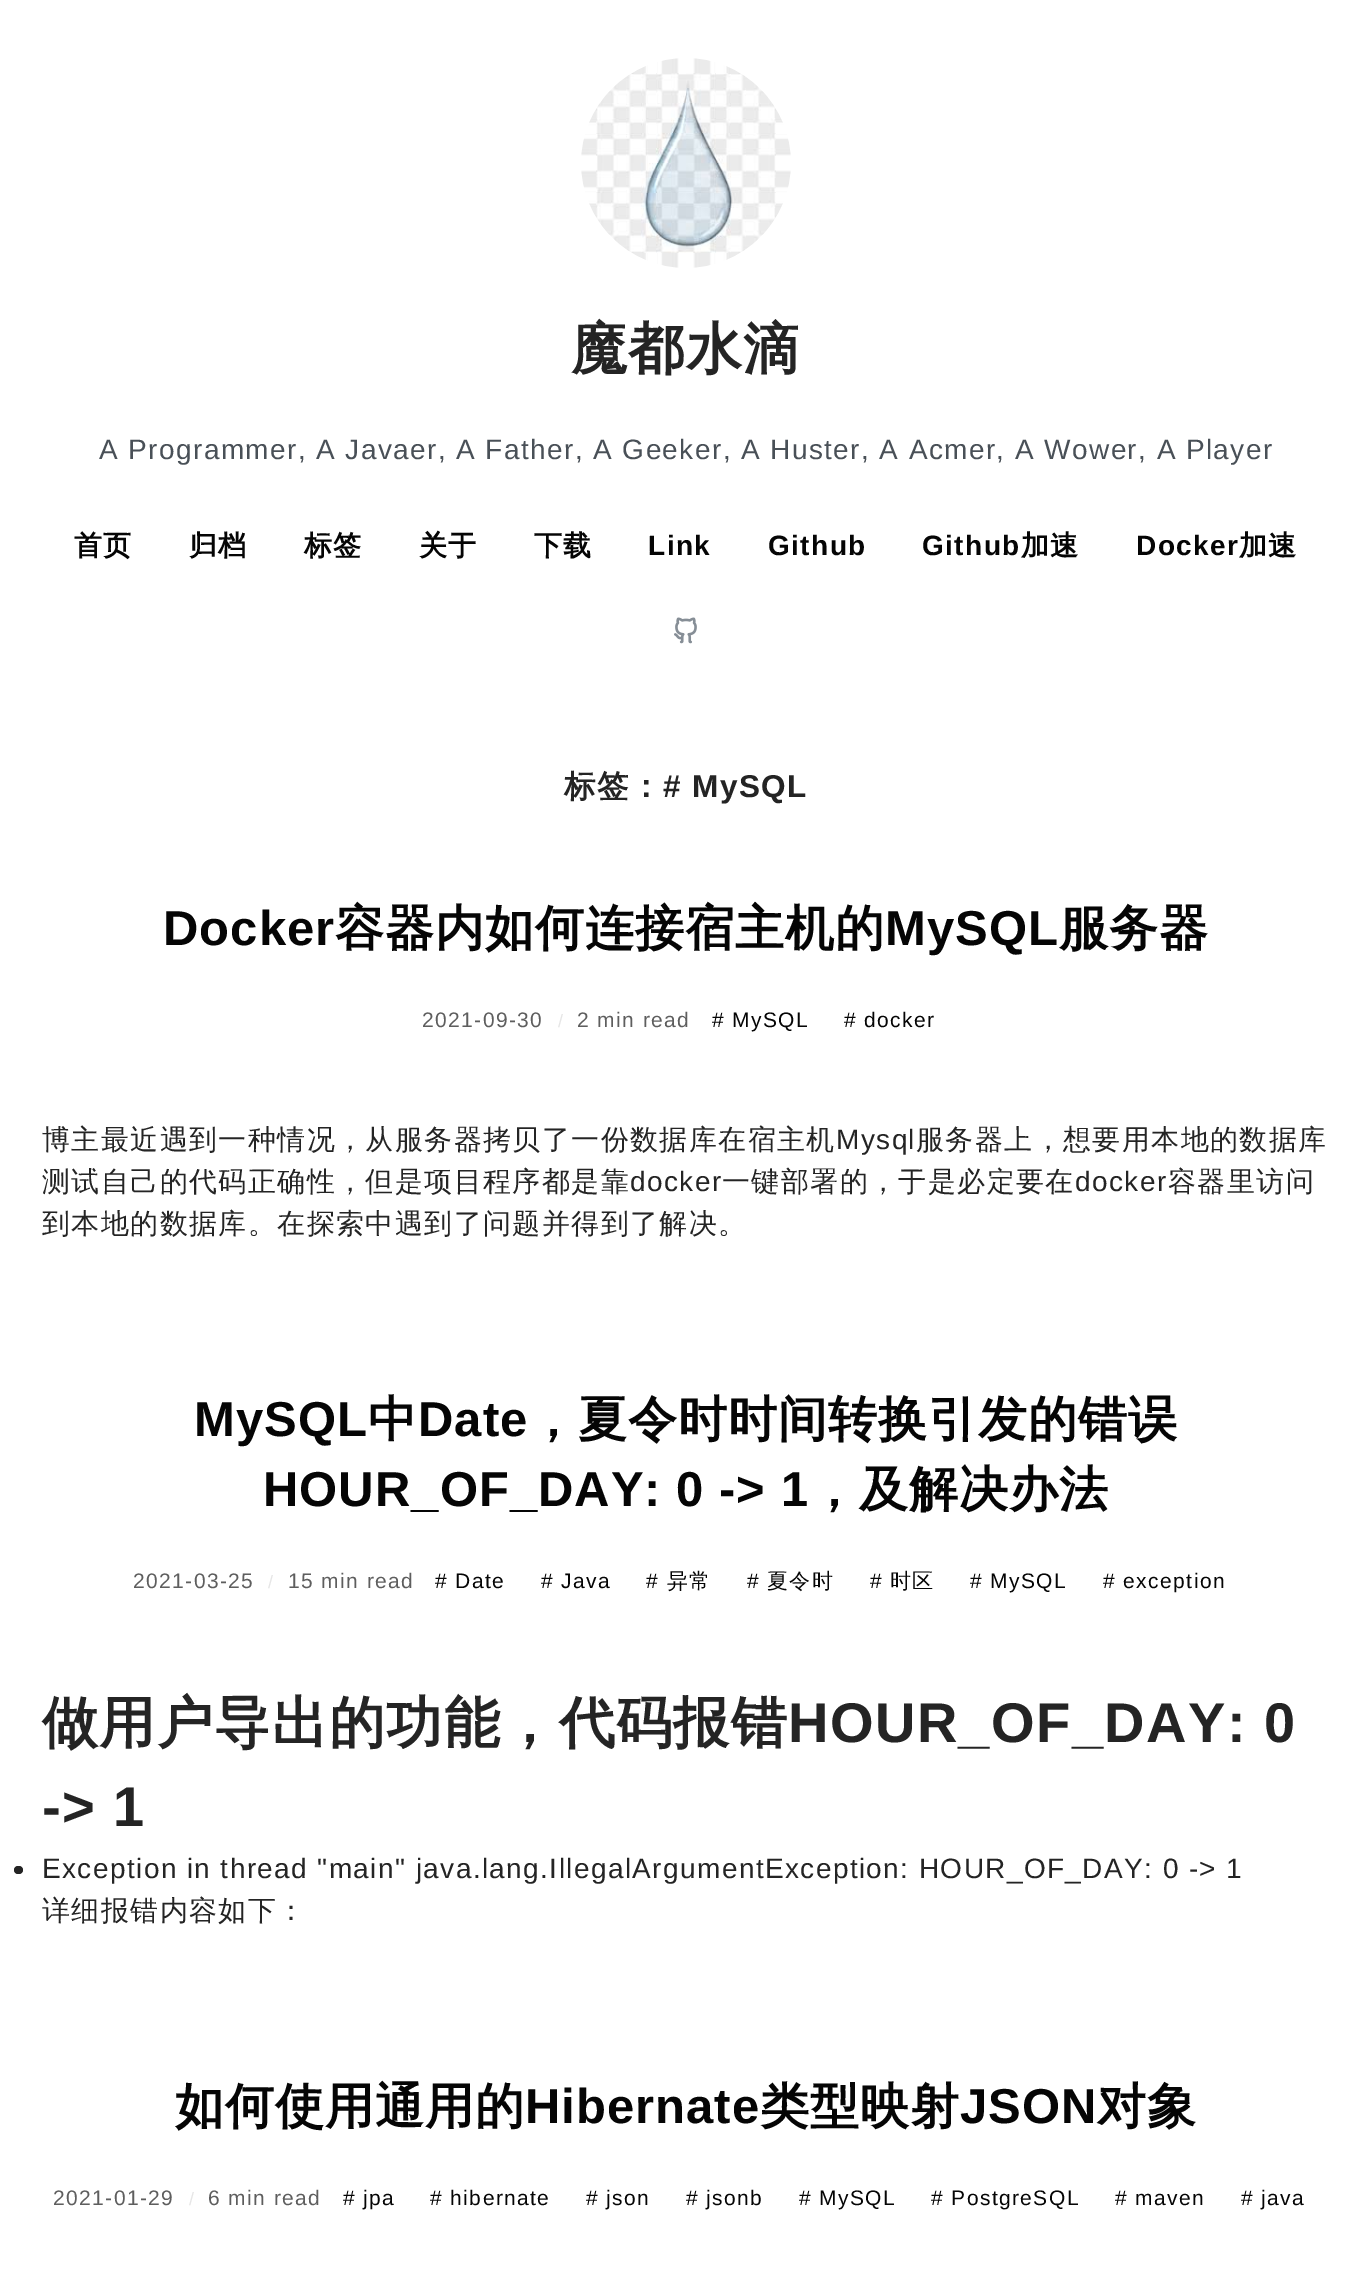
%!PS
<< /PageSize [1372 2280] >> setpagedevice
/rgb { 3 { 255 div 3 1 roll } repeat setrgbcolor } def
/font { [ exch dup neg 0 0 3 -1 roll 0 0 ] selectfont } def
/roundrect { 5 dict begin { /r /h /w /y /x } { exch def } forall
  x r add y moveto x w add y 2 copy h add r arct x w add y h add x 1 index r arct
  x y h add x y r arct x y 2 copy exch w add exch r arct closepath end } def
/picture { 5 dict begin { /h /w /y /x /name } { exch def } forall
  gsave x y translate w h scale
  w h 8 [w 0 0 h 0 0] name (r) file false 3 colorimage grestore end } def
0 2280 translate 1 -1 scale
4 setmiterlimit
255 255 255 rgb
0 0 1372 2280 rectfill
(img_01.rgb) 581 58 210 210 picture
(img_02.rgb) 674 617 23 27 picture
36 36 36 rgb
14 1866 9 8 4 roundrect fill
/WenQuanYiZenHei-Bold 56 font
571 368 moveto 1.4 0 (魔都水滴) ashow
/LiberationSans-Regular 28 font
73 80 87 rgb
99 459 moveto 1.4 0 (A Programmer, A Javaer, A Father, A Geeker, A Huster, A Acmer, A Wower, A Player) ashow
/WenQuanYiZenHei-Bold 28 font
5 5 5 rgb
74 555 moveto 1.4 0 (首页) ashow
189 555 moveto 1.4 0 (归档) ashow
304 555 moveto 1.4 0 (标签) ashow
419 555 moveto 1.4 0 (关于) ashow
534 555 moveto 1.4 0 (下载) ashow
/LiberationSans-Bold 28 font
648 555 moveto 1.4 0 (Link) ashow
768 555 moveto 1.4 0 (Github) ashow
922 555 moveto 1.4 0 (Github) ashow
/WenQuanYiZenHei-Bold 28 font
1021 555 moveto 1.4 0 (加速) ashow
/LiberationSans-Bold 28 font
1136 555 moveto 1.4 0 (Docker) ashow
/WenQuanYiZenHei-Bold 28 font
1239 555 moveto 1.4 0 (加速) ashow
/WenQuanYiZenHei-Bold 31.5 font
36 36 36 rgb
564 797 moveto 1.4 0 (标签：) ashow
/LiberationSans-Bold 31.5 font
663 797 moveto 1.4 0 (# MySQL) ashow
/LiberationSans-Bold 49 font
5 5 5 rgb
163 945 moveto 1 0 (Docker) ashow
/WenQuanYiZenHei-Bold 49 font
335 945 moveto 1 0 (容器内如何连接宿主机的) ashow
/LiberationSans-Bold 49 font
885 945 moveto 1 0 (MySQL) ashow
/WenQuanYiZenHei-Bold 49 font
1059 945 moveto 1 0 (服务器) ashow
/LiberationSans-Regular 21 font
94 94 94 rgb
422 1027 moveto 1.4 0 (2021-09-30) ashow
/LiberationSans-Regular 18 font
230 230 230 rgb
558 1027 moveto 1.4 0 (/) ashow
/LiberationSans-Regular 21 font
94 94 94 rgb
577 1027 moveto 1.4 0 (2 min read) ashow
5 5 5 rgb
712 1027 moveto 1.4 0 (# MySQL) ashow
844 1027 moveto 1.4 0 (# docker) ashow
/WenQuanYiZenHei-Medium 28 font
36 36 36 rgb
42 1149 moveto 1.4 0 (博主最近遇到一种情况，从服务器拷贝了一份数据库在宿主机) ashow
/LiberationSans-Regular 28 font
836 1149 moveto 1.4 0 (Mysql) ashow
/WenQuanYiZenHei-Medium 28 font
916 1149 moveto 1.4 0 (服务器上，想要用本地的数据库) ashow
42 1191 moveto 1.4 0 (测试自己的代码正确性，但是项目程序都是靠) ashow
/LiberationSans-Regular 28 font
630 1191 moveto 1.4 0 (docker) ashow
/WenQuanYiZenHei-Medium 28 font
722 1191 moveto 1.4 0 (一键部署的，于是必定要在) ashow
/LiberationSans-Regular 28 font
1075 1191 moveto 1.4 0 (docker) ashow
/WenQuanYiZenHei-Medium 28 font
1168 1191 moveto 1.4 0 (容器里访问) ashow
42 1233 moveto 1.4 0 (到本地的数据库。在探索中遇到了问题并得到了解决。) ashow
/LiberationSans-Bold 49 font
5 5 5 rgb
194 1436 moveto 1 0 (MySQL) ashow
/WenQuanYiZenHei-Bold 49 font
368 1436 moveto 1 0 (中) ashow
/LiberationSans-Bold 49 font
418 1436 moveto 1 0 (Date) ashow
/WenQuanYiZenHei-Bold 49 font
528 1436 moveto 1 0 (，夏令时时间转换引发的错误) ashow
/LiberationSans-Bold 49 font
263 1506 moveto 1 0 (HOUR_OF_DAY: 0 -> 1) ashow
/WenQuanYiZenHei-Bold 49 font
809 1506 moveto 1 0 (，及解决办法) ashow
/LiberationSans-Regular 21 font
94 94 94 rgb
133 1588 moveto 1.4 0 (2021-03-25) ashow
/LiberationSans-Regular 18 font
230 230 230 rgb
268 1588 moveto 1.4 0 (/) ashow
/LiberationSans-Regular 21 font
94 94 94 rgb
288 1588 moveto 1.4 0 (15 min read) ashow
5 5 5 rgb
435 1588 moveto 1.4 0 (# Date) ashow
541 1588 moveto 1.4 0 (# Java) ashow
646 1588 moveto 1.4 0 (#) ashow
/WenQuanYiZenHei-Medium 21 font
667 1588 moveto 1.4 0 (异常) ashow
/LiberationSans-Regular 21 font
747 1588 moveto 1.4 0 (#) ashow
/WenQuanYiZenHei-Medium 21 font
767 1588 moveto 1.4 0 (夏令时) ashow
/LiberationSans-Regular 21 font
870 1588 moveto 1.4 0 (#) ashow
/WenQuanYiZenHei-Medium 21 font
890 1588 moveto 1.4 0 (时区) ashow
/LiberationSans-Regular 21 font
970 1588 moveto 1.4 0 (# MySQL) ashow
1103 1588 moveto 1.4 0 (# exception) ashow
/WenQuanYiZenHei-Bold 56 font
36 36 36 rgb
42 1742 moveto 1.4 0 (做用户导出的功能，代码报错) ashow
/LiberationSans-Bold 56 font
788 1742 moveto 1.4 0 (HOUR_OF_DAY: 0) ashow
42 1826 moveto 1.4 0 (-> 1) ashow
/LiberationSans-Regular 28 font
42 1878 moveto 1.4 0 (Exception in thread "main" java.lang.IllegalArgumentException: HOUR_OF_DAY: 0 -> 1) ashow
/WenQuanYiZenHei-Medium 28 font
42 1920 moveto 1.4 0 (详细报错内容如下：) ashow
/WenQuanYiZenHei-Bold 49 font
5 5 5 rgb
175 2123 moveto 1 0 (如何使用通用的) ashow
/LiberationSans-Bold 49 font
525 2123 moveto 1 0 (Hibernate) ashow
/WenQuanYiZenHei-Bold 49 font
760 2123 moveto 1 0 (类型映射) ashow
/LiberationSans-Bold 49 font
960 2123 moveto 1 0 (JSON) ashow
/WenQuanYiZenHei-Bold 49 font
1097 2123 moveto 1 0 (对象) ashow
/LiberationSans-Regular 21 font
94 94 94 rgb
53 2205 moveto 1.4 0 (2021-01-29) ashow
/LiberationSans-Regular 18 font
230 230 230 rgb
189 2205 moveto 1.4 0 (/) ashow
/LiberationSans-Regular 21 font
94 94 94 rgb
208 2205 moveto 1.4 0 (6 min read) ashow
5 5 5 rgb
343 2205 moveto 1.4 0 (# jpa) ashow
430 2205 moveto 1.4 0 (# hibernate) ashow
586 2205 moveto 1.4 0 (# json) ashow
686 2205 moveto 1.4 0 (# jsonb) ashow
799 2205 moveto 1.4 0 (# MySQL) ashow
931 2205 moveto 1.4 0 (# PostgreSQL) ashow
1115 2205 moveto 1.4 0 (# maven) ashow
1241 2205 moveto 1.4 0 (# java) ashow
showpage
